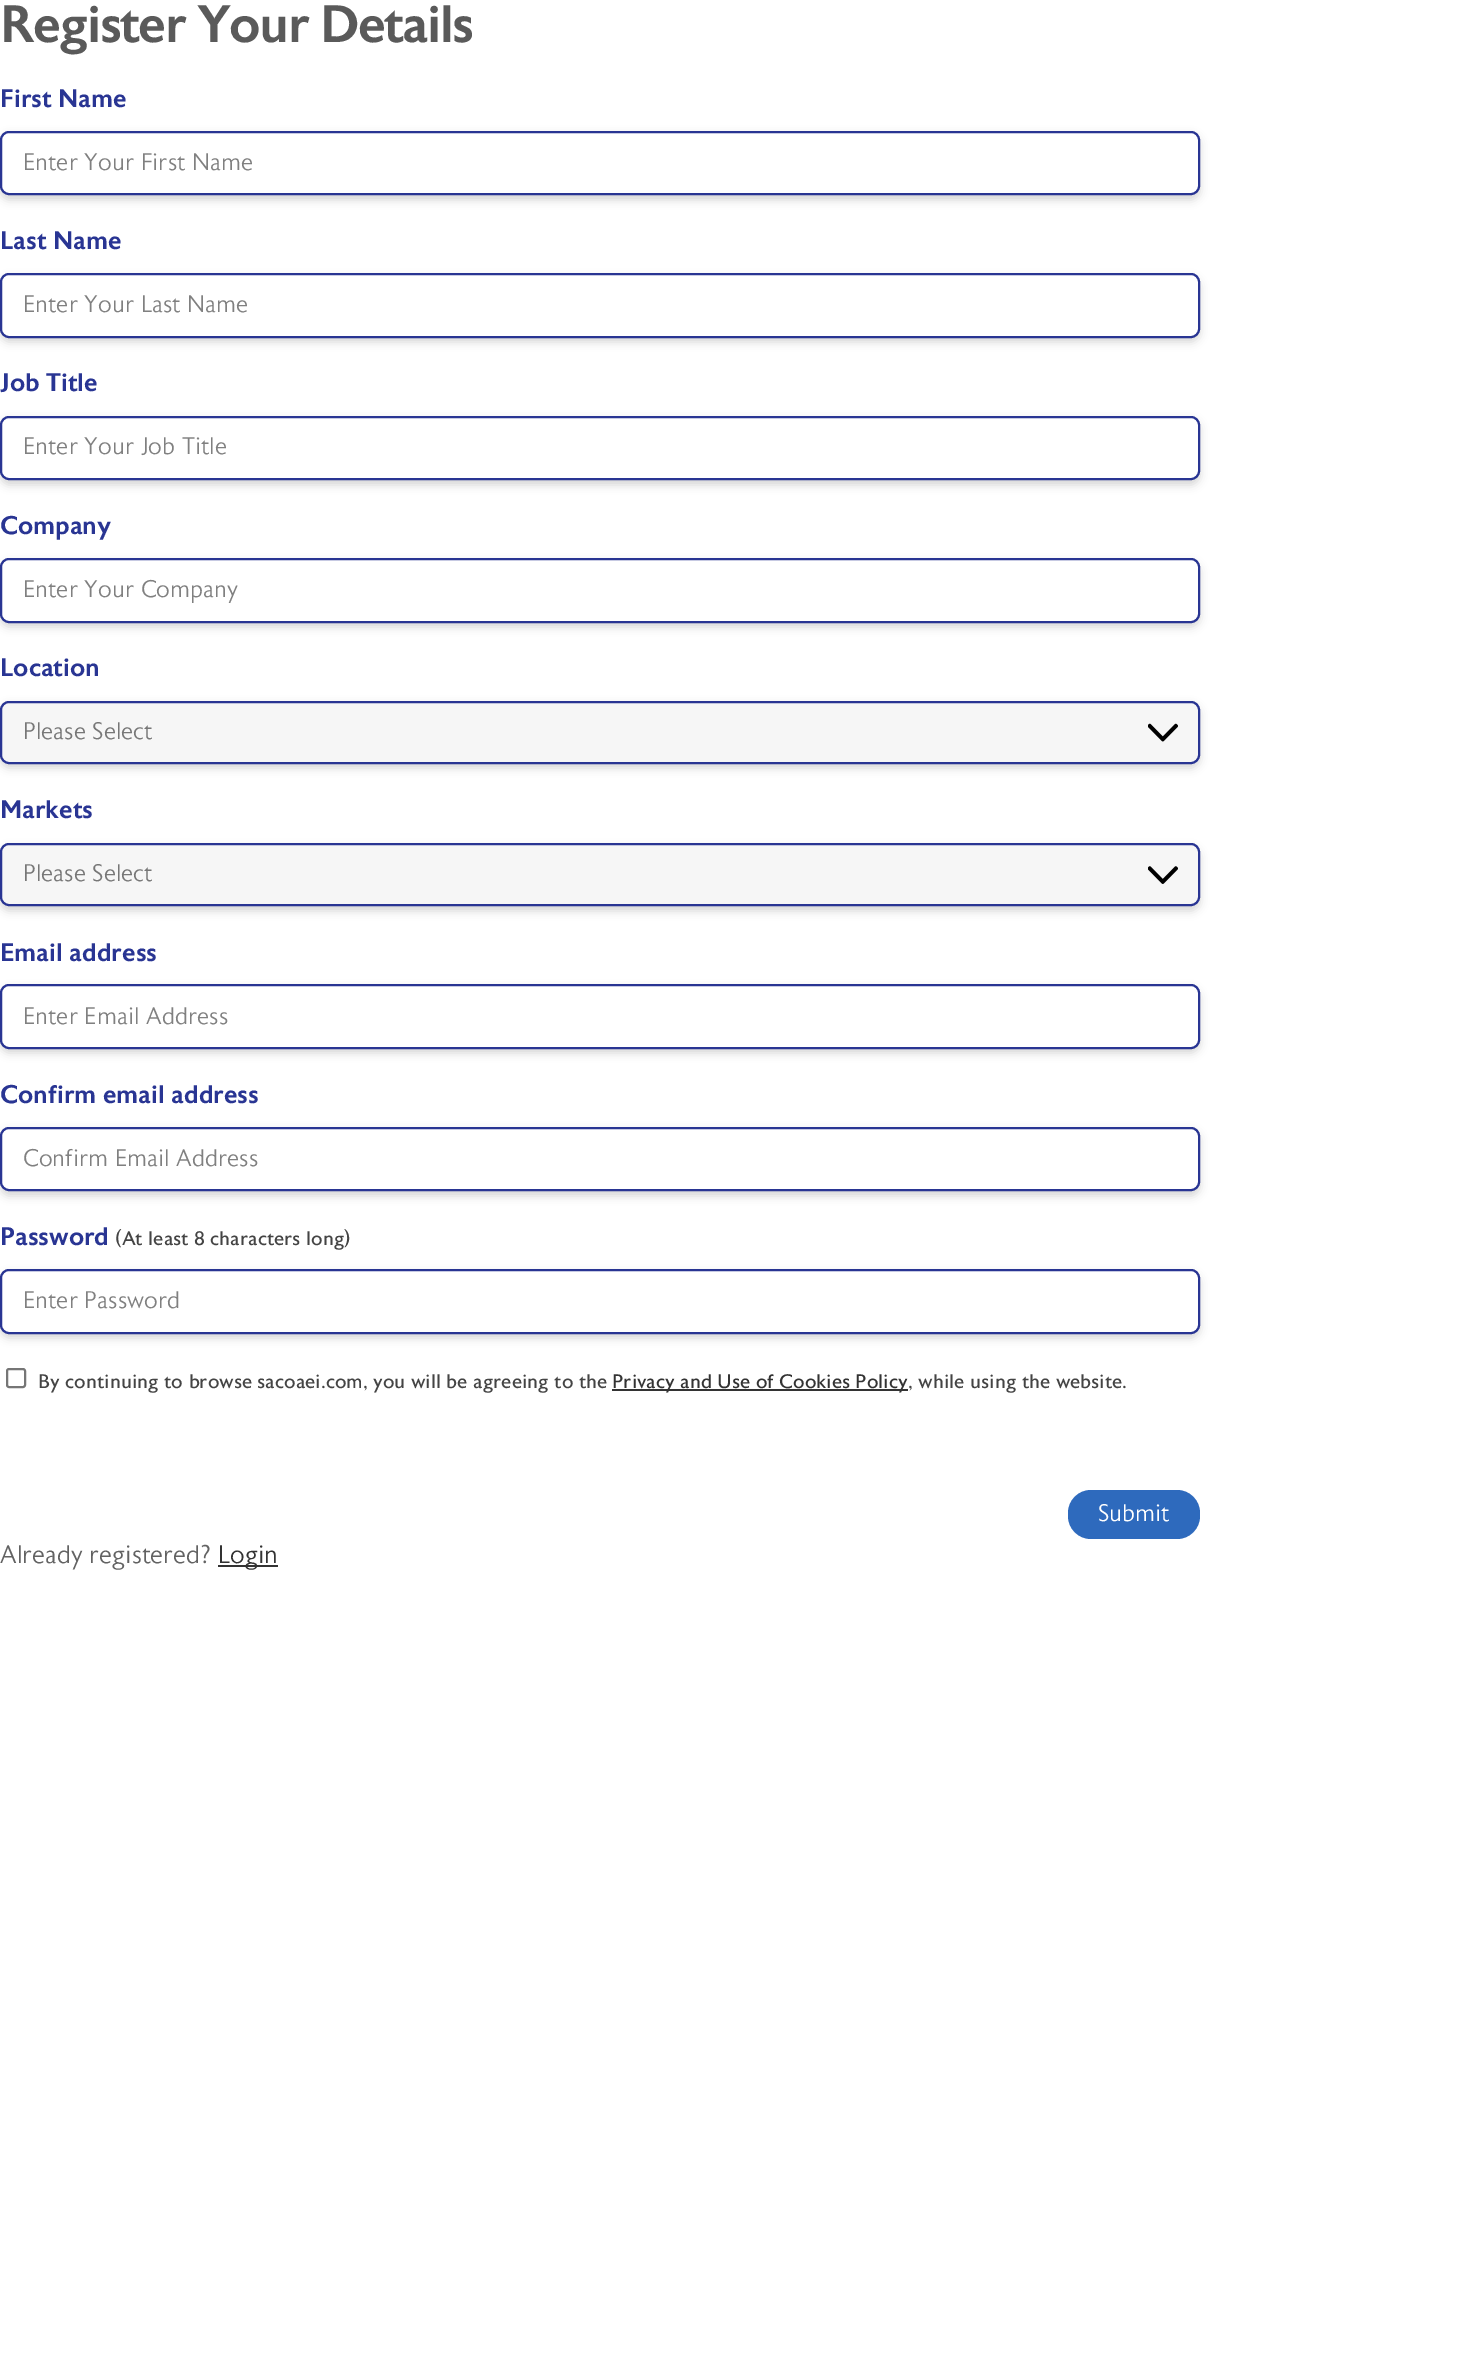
%!PS
<< /PageSize [1463 2368] /PageUsesTransparency true >> setpagedevice
/rgb { 3 { 255 div 3 1 roll } repeat setrgbcolor } def
/font { [ exch dup neg 0 0 3 -1 roll 0 0 ] selectfont } def
/text { moveto show } def
/alpha { dup .setfillconstantalpha .setstrokeconstantalpha } def
/roundrect { 5 dict begin { /r /h /w /y /x } { exch def } forall
  x r add y moveto x w add y 2 copy h add r arct x w add y h add x 1 index r arct
  x y h add x y r arct x y 2 copy exch w add exch r arct closepath end } def
/shadow { 12 dict begin { /a /b /q /h /w /y /x } { exch def } forall gsave /was 0 def
  9 -2 -9 { dup b mul 4 div /e exch def 1 sub .425 mul 2.718 exch exp 1 add a .99 .min exch div /now exch def
    1 1 now sub 1 was sub div sub alpha /was now def
    w h .min e 2 mul add 0 gt { x e sub y e sub w e 2 mul add h e 2 mul add
      q e add b .6 mul add w h .min 2 div e add .min 0 .max roundrect fill } if } for grestore end } def
/picture { 5 dict begin { /h /w /y /x /name } { exch def } forall
  gsave x y translate w h scale
  w h 8 [w 0 0 h 0 0] name (r) file false 3 colorimage grestore end } def
0 .pushpdf14devicefilter
0 2368 translate 1 -1 scale
4 setmiterlimit
255 255 255 rgb
0 0 1463 2368 rectfill
0 0 0 rgb
0 135 1200 65 9 4.5 0.16 shadow
255 255 255 rgb
1 132 1198 62 8 roundrect gsave fill grestore
41 53 147 rgb
2 setlinewidth
stroke
0 0 0 rgb
0 278 1200 64 9 4.5 0.16 shadow
255 255 255 rgb
1 274 1198 63 8 roundrect gsave fill grestore
41 53 147 rgb
stroke
0 0 0 rgb
0 420 1200 65 9 4.5 0.16 shadow
255 255 255 rgb
1 417 1198 62 8 roundrect gsave fill grestore
41 53 147 rgb
stroke
0 0 0 rgb
0 563 1200 64 9 4.5 0.16 shadow
255 255 255 rgb
1 559 1198 63 8 roundrect gsave fill grestore
41 53 147 rgb
stroke
0 0 0 rgb
0 705 1200 63 9 4.5 0.16 shadow
246 246 246 rgb
0 701 1200 63 9 roundrect fill
(img_01.rgb) 1148 723 30 19 picture
41 53 147 rgb
1 702 1198 61 8 roundrect stroke
0 0 0 rgb
0 848 1200 63 9 4.5 0.16 shadow
246 246 246 rgb
0 843 1200 63 9 roundrect fill
(img_02.rgb) 1148 866 30 18 picture
41 53 147 rgb
1 844 1198 61 8 roundrect stroke
0 0 0 rgb
0 989 1200 64 9 4.5 0.16 shadow
255 255 255 rgb
1 985 1198 63 8 roundrect gsave fill grestore
41 53 147 rgb
stroke
0 0 0 rgb
0 1131 1200 65 9 4.5 0.16 shadow
255 255 255 rgb
1 1128 1198 62 8 roundrect gsave fill grestore
41 53 147 rgb
stroke
0 0 0 rgb
0 1274 1200 64 9 4.5 0.16 shadow
255 255 255 rgb
1 1270 1198 63 8 roundrect gsave fill grestore
41 53 147 rgb
stroke
118 118 118 rgb
7 1369 18 18 2 roundrect stroke
51 51 51 rgb
612 1389 296 2 rectfill
46 106 189 rgb
1068 1490 132 49 23 roundrect fill
51 51 51 rgb
218 1565 60 2 rectfill
/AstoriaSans-Medium 52.5 font
90 90 90 rgb
0 42 moveto -1.5 0 (Register Your Details) ashow
/AstoriaSans-Medium 25.5 font
41 53 147 rgb
(First Name) 0 107 text
/AstoriaSans-Light 24 font
128 128 128 rgb
(Enter Your First Name) 23 170 text
/AstoriaSans-Medium 25.5 font
41 53 147 rgb
(Last Name) 0 249 text
/AstoriaSans-Light 24 font
128 128 128 rgb
(Enter Your Last Name) 23 312 text
/AstoriaSans-Medium 25.5 font
41 53 147 rgb
(Job Title) 0 391 text
/AstoriaSans-Light 24 font
128 128 128 rgb
(Enter Your Job Title) 23 454 text
/AstoriaSans-Medium 25.5 font
41 53 147 rgb
(Company) 0 534 text
gsave
23 576 1155 27 rectclip
/AstoriaSans-Light 24 font
128 128 128 rgb
(Enter Your Company) 23 597 text
grestore
(Location) 0 676 text
/AstoriaSans-Light 24 font
119 119 119 rgb
(Please Select) 23 739 text
/AstoriaSans-Medium 25.5 font
41 53 147 rgb
(Markets) 0 818 text
/AstoriaSans-Light 24 font
119 119 119 rgb
(Please Select) 23 881 text
/AstoriaSans-Medium 25.5 font
41 53 147 rgb
(Email address) 0 961 text
/AstoriaSans-Light 24 font
128 128 128 rgb
(Enter Email Address) 23 1024 text
/AstoriaSans-Medium 25.5 font
41 53 147 rgb
(Confirm email address) 0 1103 text
/AstoriaSans-Light 24 font
128 128 128 rgb
(Confirm Email Address) 23 1166 text
/AstoriaSans-Medium 25.5 font
41 53 147 rgb
(Password) 0 1245 text
/AstoriaSans-Regular 19.5 font
68 68 68 rgb
(\(At least 8 characters long\)) 115 1245 text
/AstoriaSans-Light 24 font
128 128 128 rgb
(Enter Password) 23 1308 text
/AstoriaSans-Regular 19.5 font
68 68 68 rgb
(By continuing to browse sacoaei.com, you will be agreeing to the) 38 1388 text
51 51 51 rgb
(Privacy and Use of Cookies Policy) 612 1388 text
68 68 68 rgb
(, while using the website.) 908 1388 text
/AstoriaSans-Light 24 font
255 255 255 rgb
(Submit) 1098 1521 text
/AstoriaSans-Light 25.5 font
98 98 98 rgb
(Already registered?) 0 1563 text
51 51 51 rgb
(Login) 218 1563 text
.poppdf14devicefilter showpage
